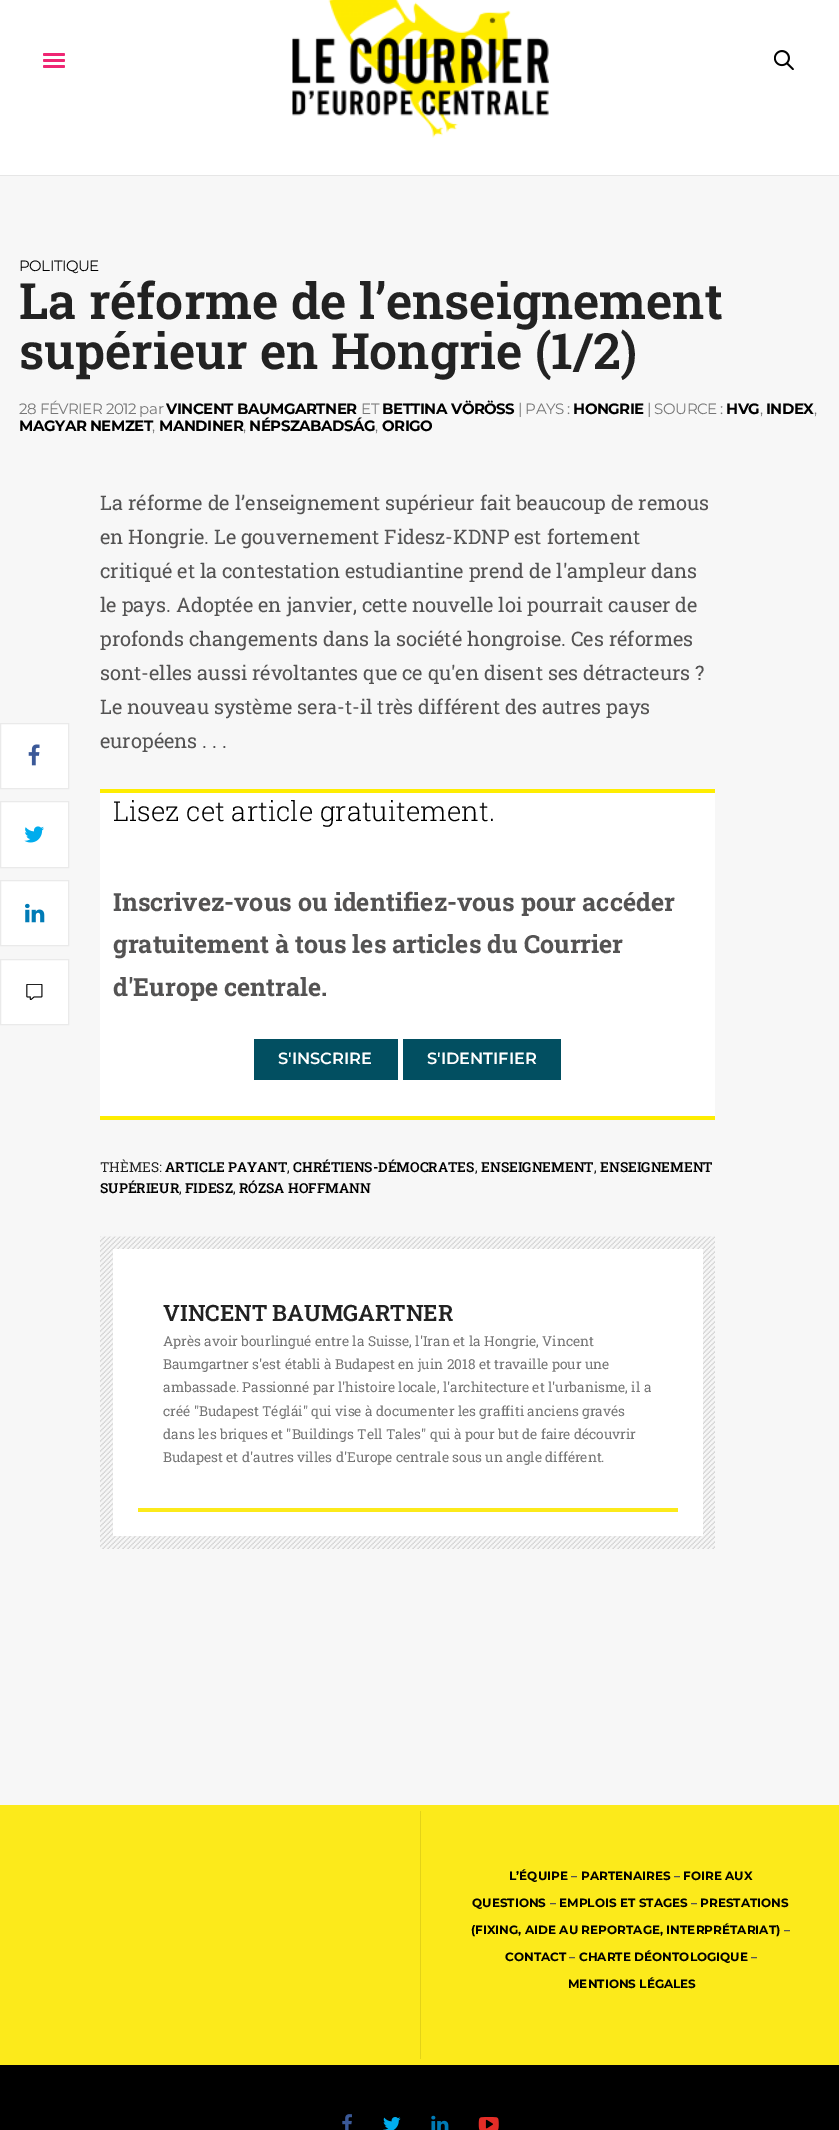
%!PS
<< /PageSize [839 2130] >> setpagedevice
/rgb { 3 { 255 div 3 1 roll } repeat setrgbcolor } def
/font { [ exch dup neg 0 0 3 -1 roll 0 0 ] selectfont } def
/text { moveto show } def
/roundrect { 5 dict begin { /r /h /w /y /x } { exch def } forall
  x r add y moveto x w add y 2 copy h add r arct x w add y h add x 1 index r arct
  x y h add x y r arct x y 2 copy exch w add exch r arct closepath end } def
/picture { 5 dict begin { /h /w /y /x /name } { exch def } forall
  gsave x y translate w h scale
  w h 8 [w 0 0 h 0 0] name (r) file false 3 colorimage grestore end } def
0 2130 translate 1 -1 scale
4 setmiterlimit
247 247 247 rgb
0 0 839 2130 rectfill
255 255 255 rgb
0 0 839 175 rectfill
230 230 230 rgb
0 175 839 1 rectfill
239 38 115 rgb
43 53 22 3 1.5 roundrect fill
43 59 22 3 1.5 roundrect fill
43 65 22 3 1.5 roundrect fill
(img_01.rgb) 292 0 257 138 picture
(img_02.rgb) 774 50 20 20 picture
255 255 255 rgb
0.5 723.5 moveto 68 0 rlineto 0 65 rlineto -68 0 rlineto closepath gsave fill grestore
234 234 234 rgb
stroke
(img_03.rgb) 28 744 12 22 picture
255 255 255 rgb
0.5 801.5 moveto 68 0 rlineto 0 66 rlineto -68 0 rlineto closepath gsave fill grestore
234 234 234 rgb
stroke
(img_04.rgb) 24 826 20 17 picture
255 255 255 rgb
0.5 880.5 moveto 68 0 rlineto 0 65 rlineto -68 0 rlineto closepath gsave fill grestore
234 234 234 rgb
stroke
(img_05.rgb) 25 903 20 20 picture
255 255 255 rgb
0.5 959.5 moveto 68 0 rlineto 0 65 rlineto -68 0 rlineto closepath gsave fill grestore
234 234 234 rgb
stroke
(img_06.rgb) 26 984 17 16 picture
255 255 255 rgb
100 793 615 323 rectfill
254 237 1 rgb
100 789 615 4 rectfill
100 1116 615 4 rectfill
2 79 97 rgb
254 1039 144 41 rectfill
403 1039 158 41 rectfill
(img_07.rgb) 100 1236 615 313 picture
255 255 255 rgb
113 1249 590 287 rectfill
252 234 27 rgb
138 1508 540 4 rectfill
0 1805 839 260 rectfill
227 211 24 rgb
420 1811 1 248 rectfill
0 0 0 rgb
0 2065 839 65 rectfill
(img_08.rgb) 342 2114 10 16 picture
(img_09.rgb) 383 2117 18 13 picture
(img_10.rgb) 431 2115 18 15 picture
(img_11.rgb) 478 2117 21 13 picture
/Montserrat-Regular 15 font
19 271 moveto -0.5 0 (POLITIQUE) ashow
/RobotoSlab-SemiBold 50 font
34 34 34 rgb
(La réforme de l’enseignement) 19 319 text
(supérieur en Hongrie \(1/2\)) 19 369 text
/Montserrat-Regular 15 font
118 118 118 rgb
19 414 moveto -0.5 0 (28 FÉVRIER 2012 par) ashow
/Montserrat-Bold 15 font
0 0 0 rgb
166 414 moveto -0.5 0 (VINCENT BAUMGARTNER) ashow
/Montserrat-Regular 15 font
118 118 118 rgb
361 414 moveto -0.5 0 (ET) ashow
/Montserrat-Bold 15 font
0 0 0 rgb
382 414 moveto -0.5 0 (BETTINA VÖRÖSS) ashow
/Montserrat-Regular 15 font
118 118 118 rgb
518 414 moveto -0.5 0 (| PAYS :) ashow
/Montserrat-Bold 15 font
0 0 0 rgb
573 414 moveto -0.5 0 (HONGRIE) ashow
/Montserrat-Regular 15 font
118 118 118 rgb
647 414 moveto -0.5 0 (| SOURCE :) ashow
/Montserrat-Bold 15 font
0 0 0 rgb
726 414 moveto -0.5 0 (HVG) ashow
766 414 moveto -0.5 0 (INDEX) ashow
/Montserrat-Regular 15 font
118 118 118 rgb
760 414 moveto -0.5 0 (,) ashow
814 414 moveto -0.5 0 (,) ashow
/Montserrat-Bold 15 font
0 0 0 rgb
19 431 moveto -0.5 0 (MAGYAR NEMZET) ashow
/Montserrat-Regular 15 font
118 118 118 rgb
152 431 moveto -0.5 0 (,) ashow
/Montserrat-Bold 15 font
0 0 0 rgb
159 431 moveto -0.5 0 (MANDINER) ashow
/Montserrat-Regular 15 font
118 118 118 rgb
243 431 moveto -0.5 0 (,) ashow
/Montserrat-Bold 15 font
0 0 0 rgb
249 431 moveto -0.5 0 (NÉPSZABADSÁG) ashow
/Montserrat-Regular 15 font
118 118 118 rgb
375 431 moveto -0.5 0 (,) ashow
/Montserrat-Bold 15 font
0 0 0 rgb
382 431 moveto -0.5 0 (ORIGO) ashow
/RobotoSlab-Regular 20 font
84 83 83 rgb
(La réforme de l’enseignement supérieur fait beaucoup de remous) 100 510 text
(en Hongrie. Le gouvernement Fidesz-KDNP est fortement) 100 544 text
(critiqué et la contestation estudiantine prend de l'ampleur dans) 100 578 text
(le pays. Adoptée en janvier, cette nouvelle loi pourrait causer de) 100 612 text
(profonds changements dans la société hongroise. Ces réformes) 100 646 text
(sont-elles aussi révoltantes que ce qu'en disent ses détracteurs ?) 100 680 text
(Le nouveau système sera-t-il très différent des autres pays) 100 714 text
(européens . . .) 100 748 text
/RobotoSlab-Light 27.5 font
0 0 0 rgb
(Lisez cet article gratuitement.) 113 821 text
/RobotoSlab-Bold 25 font
84 83 83 rgb
(Inscrivez-vous ou identifiez-vous pour accéder) 113 911 text
(gratuitement à tous les articles du Courrier) 113 953 text
(d'Europe centrale.) 113 996 text
/Montserrat-SemiBold 16.25 font
255 255 255 rgb
(S'INSCRIRE) 278 1064 text
(S'IDENTIFIER) 427 1064 text
/RobotoSlab-Regular 13.75 font
34 34 34 rgb
(THÈMES:) 100 1172 text
/RobotoSlab-SemiBold 13.75 font
0 0 0 rgb
(ARTICLE PAYANT) 165 1172 text
/RobotoSlab-Regular 13.75 font
34 34 34 rgb
(,) 287 1172 text
/RobotoSlab-SemiBold 13.75 font
0 0 0 rgb
(CHRÉTIENS-DÉMOCRATES) 293 1172 text
/RobotoSlab-Regular 13.75 font
34 34 34 rgb
(,) 475 1172 text
/RobotoSlab-SemiBold 13.75 font
0 0 0 rgb
(ENSEIGNEMENT) 481 1172 text
/RobotoSlab-Regular 13.75 font
34 34 34 rgb
(,) 594 1172 text
/RobotoSlab-SemiBold 13.75 font
0 0 0 rgb
(ENSEIGNEMENT) 600 1172 text
(SUPÉRIEUR) 100 1193 text
/RobotoSlab-Regular 13.75 font
34 34 34 rgb
(,) 179 1193 text
/RobotoSlab-SemiBold 13.75 font
0 0 0 rgb
(FIDESZ) 185 1193 text
/RobotoSlab-Regular 13.75 font
34 34 34 rgb
(,) 233 1193 text
/RobotoSlab-SemiBold 13.75 font
0 0 0 rgb
(RÓZSA HOFFMANN) 239 1193 text
/RobotoSlab-SemiBold 22.5 font
34 34 34 rgb
(VINCENT BAUMGARTNER) 163 1321 text
/RobotoSlab-Regular 13.75 font
118 118 118 rgb
(Après avoir bourlingué entre la Suisse, l'Iran et la Hongrie, Vincent) 163 1346 text
(Baumgartner s'est établi à Budapest en juin 2018 et travaille pour une) 163 1369 text
(ambassade. Passionné par l'histoire locale, l'architecture et l'urbanisme, il a) 163 1392 text
(créé "Budapest Téglái" qui vise à documenter les graffiti anciens gravés) 163 1416 text
(dans les briques et "Buildings Tell Tales" qui à pour but de faire découvrir) 163 1439 text
(Budapest et d'autres villes d'Europe centrale sous un angle différent.) 163 1462 text
/Montserrat-Bold 12 font
0 0 0 rgb
(L’ÉQUIPE) 509 1880 text
84 83 83 rgb
(–) 571 1880 text
0 0 0 rgb
(PARTENAIRES) 581 1880 text
84 83 83 rgb
(–) 674 1880 text
0 0 0 rgb
(FOIRE AUX) 683 1880 text
(QUESTIONS) 472 1907 text
84 83 83 rgb
(–) 550 1907 text
0 0 0 rgb
(EMPLOIS ET STAGES) 559 1907 text
84 83 83 rgb
(–) 691 1907 text
0 0 0 rgb
(PRESTATIONS) 700 1907 text
(\(FIXING, AIDE AU REPORTAGE, INTERPRÉTARIAT\)) 471 1934 text
84 83 83 rgb
(–) 784 1934 text
0 0 0 rgb
(CONTACT) 505 1961 text
84 83 83 rgb
(–) 569 1961 text
0 0 0 rgb
(CHARTE DÉONTOLOGIQUE) 579 1961 text
84 83 83 rgb
(–) 751 1961 text
0 0 0 rgb
(MENTIONS LÉGALES) 568 1988 text
showpage
